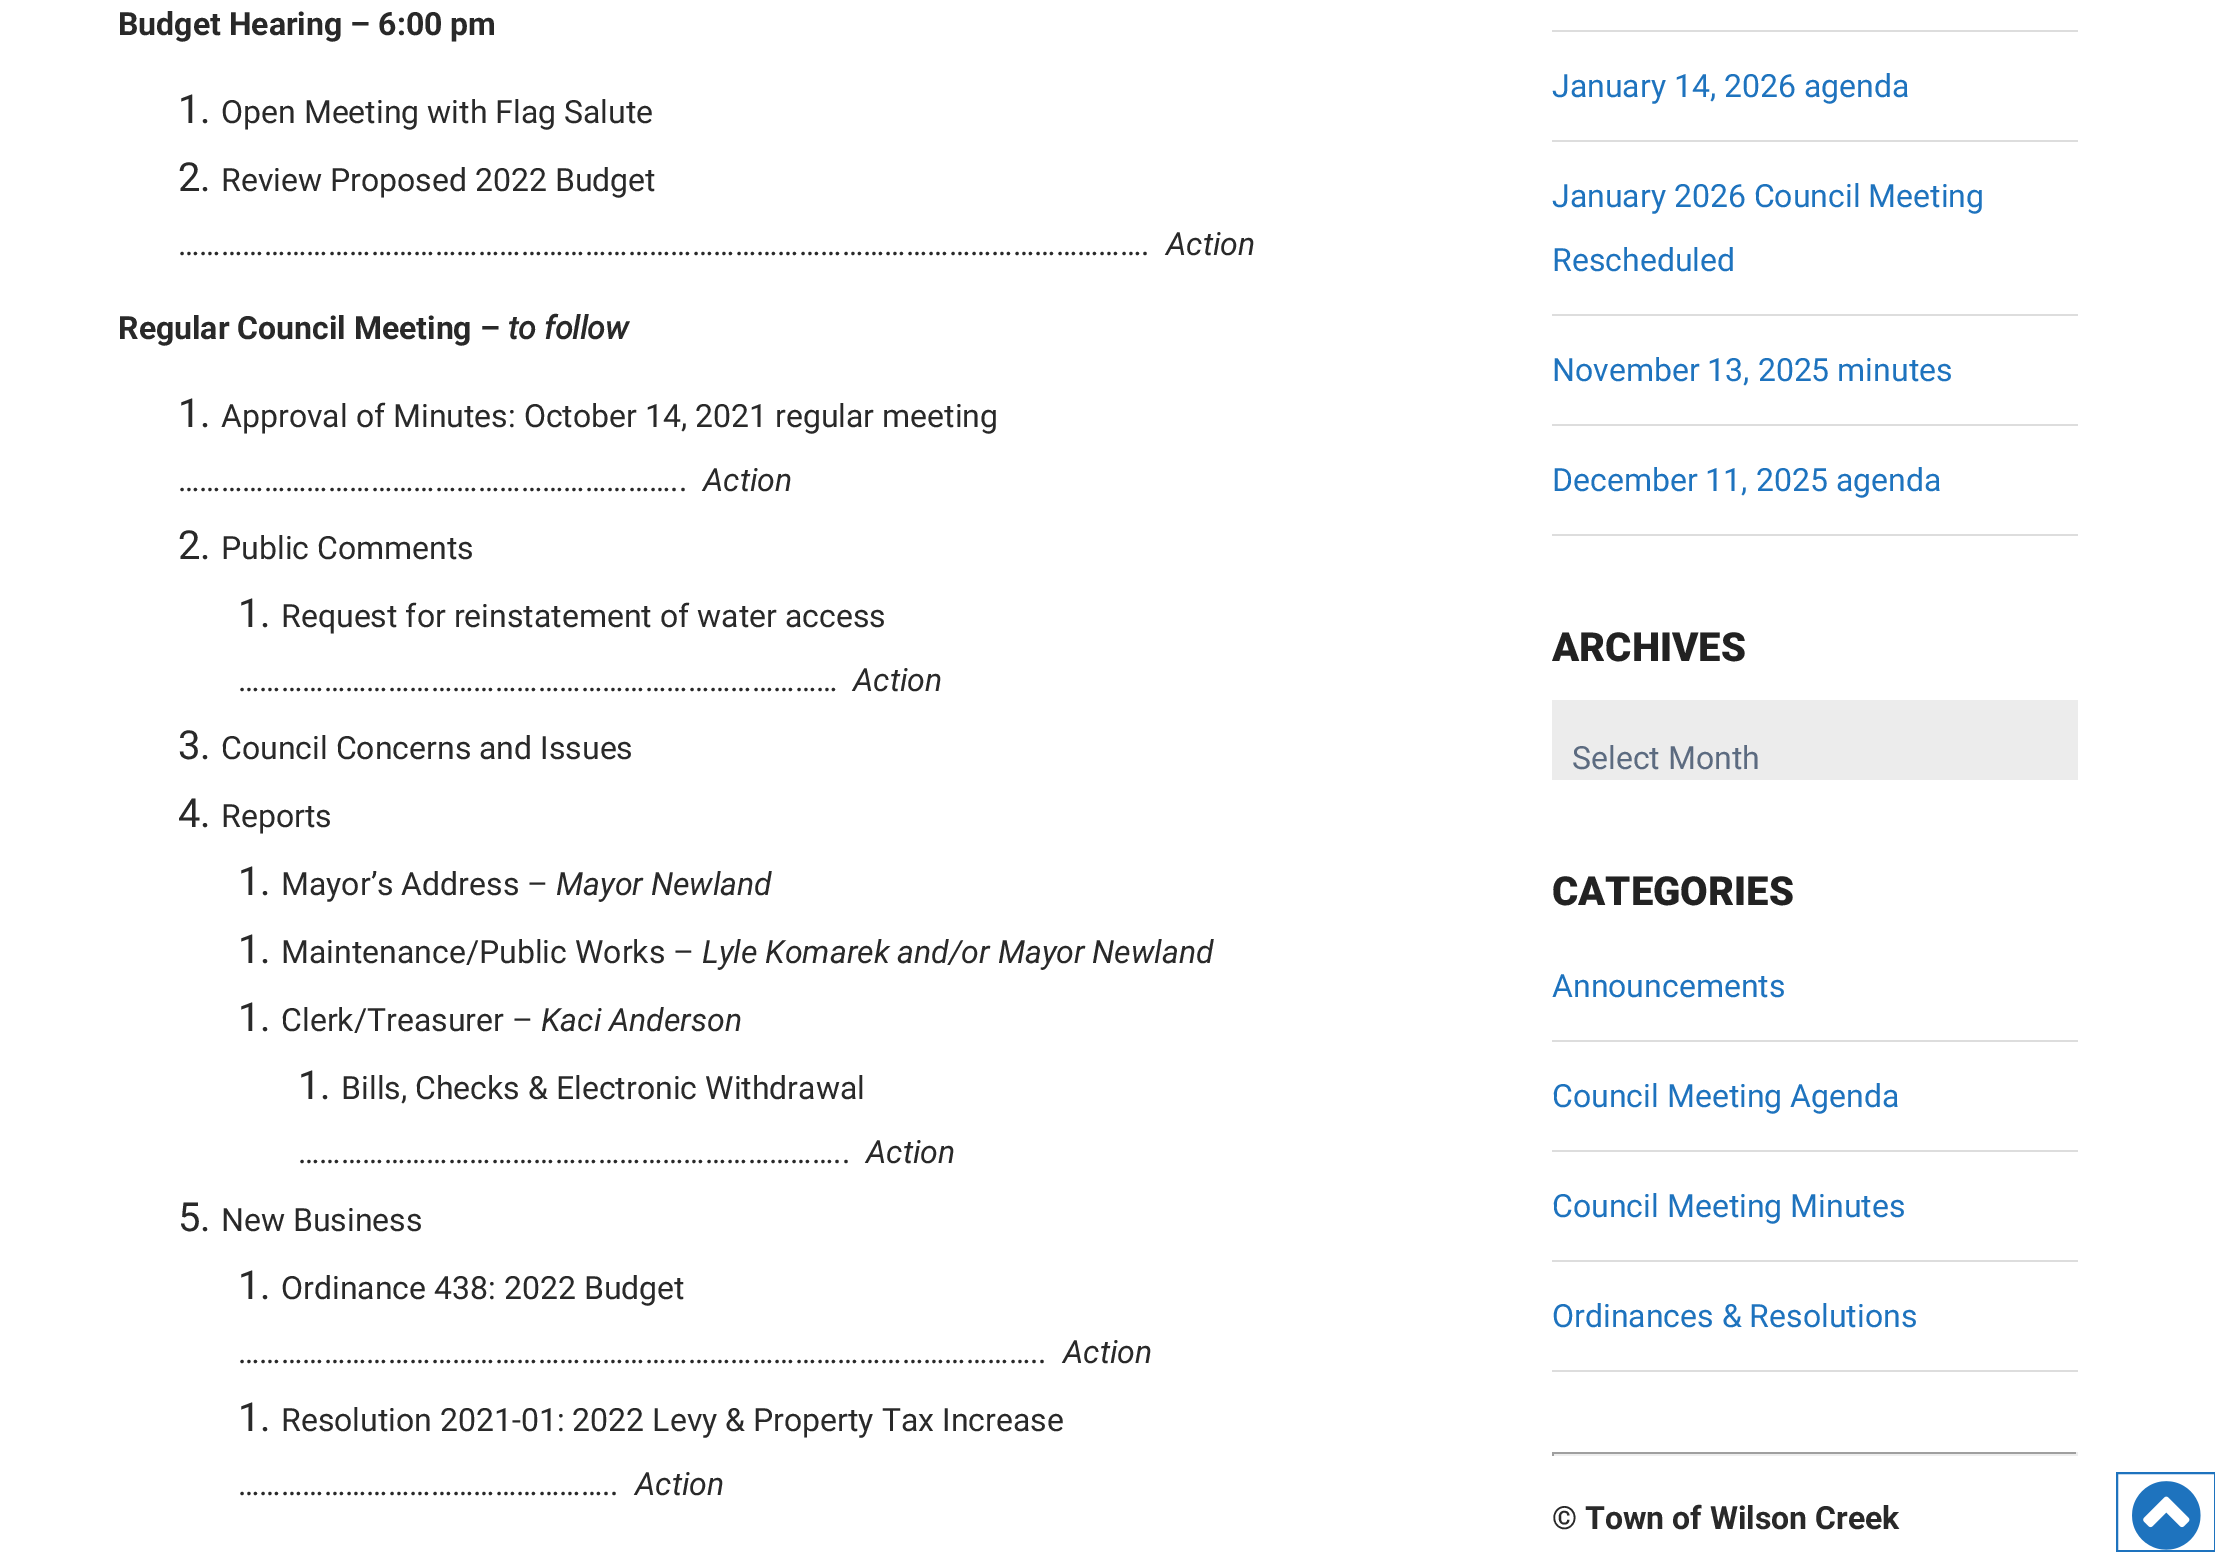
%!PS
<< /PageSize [2215 1552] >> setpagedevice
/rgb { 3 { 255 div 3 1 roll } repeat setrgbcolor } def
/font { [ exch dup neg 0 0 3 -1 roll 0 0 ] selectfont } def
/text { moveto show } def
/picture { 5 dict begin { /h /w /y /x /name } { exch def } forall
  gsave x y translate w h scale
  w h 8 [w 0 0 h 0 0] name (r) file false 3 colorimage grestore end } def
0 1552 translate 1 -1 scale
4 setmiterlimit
255 255 255 rgb
0 0 2215 1552 rectfill
221 221 221 rgb
1552 30 526 2 rectfill
1552 140 526 2 rectfill
1552 314 526 2 rectfill
1552 424 526 2 rectfill
1552 534 526 2 rectfill
236 236 236 rgb
1552 700 526 80 rectfill
221 221 221 rgb
1552 1040 526 2 rectfill
1552 1150 526 2 rectfill
1552 1260 526 2 rectfill
1552 1370 526 2 rectfill
159 159 159 rgb
1552 1452 526 2 rectfill
238 238 238 rgb
2076 1452 2 4 rectfill
1552 1454 526 2 rectfill
159 159 159 rgb
1552 1452 2 4 rectfill
30 115 190 rgb
2 setlinewidth
2117 1473 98 78 rectstroke
(img_01.rgb) 2132 1481 69 69 picture
/Roboto-Bold 32 font
41 41 41 rgb
(Budget Hearing – 6:00 pm) 118 35 text
/Roboto-Regular 40 font
(1.) 178 123 text
/Roboto-Regular 32 font
(Open Meeting with Flag Salute) 221 123 text
/Roboto-Regular 40 font
(2.) 178 191 text
/Roboto-Regular 32 font
(Review Proposed 2022 Budget) 221 191 text
(……………………………………………………………………………………………………………………….) 178 255 text
/Roboto-Italic 32 font
(Action) 1166 255 text
/Roboto-Bold 32 font
(Regular Council Meeting –) 118 339 text
/Roboto-BoldItalic 32 font
(to follow) 508 339 text
/Roboto-Regular 40 font
(1.) 178 427 text
/Roboto-Regular 32 font
(Approval of Minutes: October 14, 2021 regular meeting) 221 427 text
(……………………………………………………………..) 178 491 text
/Roboto-Italic 32 font
(Action) 703 491 text
/Roboto-Regular 40 font
(2.) 178 559 text
/Roboto-Regular 32 font
(Public Comments) 221 559 text
/Roboto-Regular 40 font
(1.) 238 627 text
/Roboto-Regular 32 font
(Request for reinstatement of water access) 281 627 text
(…………………………………………………………………………) 238 691 text
/Roboto-Italic 32 font
(Action) 853 691 text
/Roboto-Regular 40 font
(3.) 178 759 text
/Roboto-Regular 32 font
(Council Concerns and Issues) 221 759 text
/Roboto-Regular 40 font
(4.) 178 827 text
/Roboto-Regular 32 font
(Reports) 221 827 text
/Roboto-Regular 40 font
(1.) 238 895 text
/Roboto-Regular 32 font
(Mayor’s Address –) 281 895 text
/Roboto-Italic 32 font
(Mayor Newland) 556 895 text
/Roboto-Regular 40 font
(1.) 238 963 text
/Roboto-Regular 32 font
(Maintenance/Public Works –) 281 963 text
/Roboto-Italic 32 font
(Lyle Komarek and/or Mayor Newland) 702 963 text
/Roboto-Regular 40 font
(1.) 238 1031 text
/Roboto-Regular 32 font
(Clerk/Treasurer –) 281 1031 text
/Roboto-Italic 32 font
(Kaci Anderson) 541 1031 text
/Roboto-Regular 40 font
(1.) 298 1099 text
/Roboto-Regular 32 font
(Bills, Checks & Electronic Withdrawal) 341 1099 text
(…………………………………………………………………..) 298 1163 text
/Roboto-Italic 32 font
(Action) 866 1163 text
/Roboto-Regular 40 font
(5.) 178 1231 text
/Roboto-Regular 32 font
(New Business) 221 1231 text
/Roboto-Regular 40 font
(1.) 238 1299 text
/Roboto-Regular 32 font
(Ordinance 438: 2022 Budget) 281 1299 text
(…………………………………………………………………………………………………..) 238 1363 text
/Roboto-Italic 32 font
(Action) 1063 1363 text
/Roboto-Regular 40 font
(1.) 238 1431 text
/Roboto-Regular 32 font
(Resolution 2021-01: 2022 Levy & Property Tax Increase) 281 1431 text
(……………………………………………..) 238 1495 text
/Roboto-Italic 32 font
(Action) 635 1495 text
/Roboto-Regular 32 font
30 115 190 rgb
(January 14, 2026 agenda) 1552 97 text
(January 2026 Council Meeting) 1552 207 text
(Rescheduled) 1552 271 text
(November 13, 2025 minutes) 1552 381 text
(December 11, 2025 agenda) 1552 491 text
/Roboto-Black 40 font
34 34 34 rgb
(ARCHIVES) 1552 661 text
/Roboto-Regular 32 font
92 107 128 rgb
(Select Month) 1572 769 text
/Roboto-Black 40 font
34 34 34 rgb
(CATEGORIES) 1552 905 text
/Roboto-Regular 32 font
30 115 190 rgb
(Announcements) 1552 997 text
(Council Meeting Agenda) 1552 1107 text
(Council Meeting Minutes) 1552 1217 text
(Ordinances & Resolutions) 1552 1327 text
/Roboto-Bold 32 font
41 41 41 rgb
(© Town of Wilson Creek) 1552 1529 text
showpage
